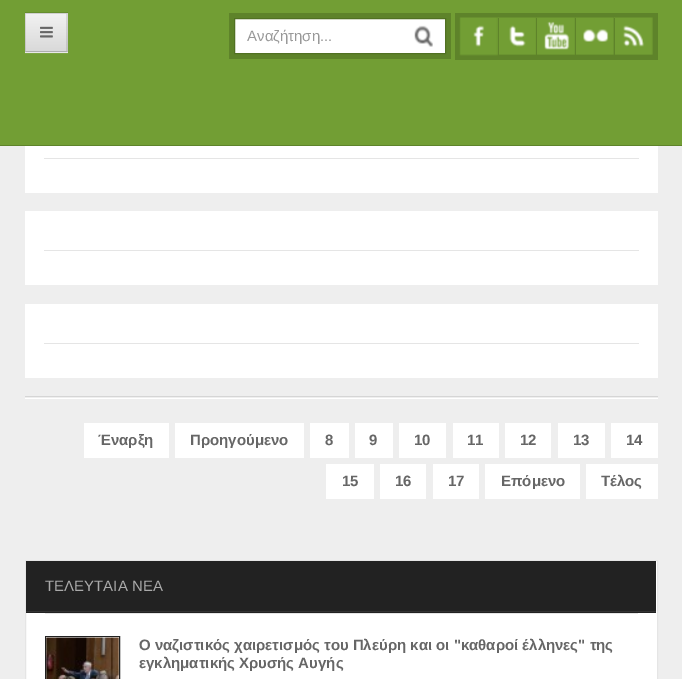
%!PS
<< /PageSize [682 679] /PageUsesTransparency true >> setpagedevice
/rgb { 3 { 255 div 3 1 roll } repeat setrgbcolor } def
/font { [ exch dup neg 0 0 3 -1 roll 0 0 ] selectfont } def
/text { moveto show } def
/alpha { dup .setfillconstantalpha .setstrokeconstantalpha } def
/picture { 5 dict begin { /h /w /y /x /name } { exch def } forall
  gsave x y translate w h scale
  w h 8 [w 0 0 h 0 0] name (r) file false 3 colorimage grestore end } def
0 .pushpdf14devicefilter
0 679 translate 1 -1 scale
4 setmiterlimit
238 238 238 rgb
0 0 682 679 rectfill
114 158 52 rgb
0 0 682 145 rectfill
94 131 42 rgb
0 145 682 1 rectfill
125 165 67 rgb
25 52 moveto 0 2 rlineto 43 0 rlineto 0 -40 rlineto 0 38 rlineto closepath fill
232 232 232 rgb
25 13 43 40 rectfill
gsave 25 14 moveto 43 0 rlineto 0 37 rlineto -43 0 rlineto closepath clip newpath
<< /ShadingType 2 /ColorSpace /DeviceRGB /Coords [46 14 46 51] /Extend [true true] /Function << /FunctionType 2 /Domain [0 1] /C0 [0.949 0.949 0.949] /C1 [0.851 0.851 0.851] /N 1 >> >> shfill grestore
0.1 alpha
0 0 0 rgb
25 12 moveto 43 0 rlineto -2 2 rlineto -40 0 rlineto closepath fill
68 12 moveto 0 40 rlineto -2 -1 rlineto 0 -37 rlineto closepath fill
0.25 alpha
68 52 moveto -43 0 rlineto 1 -1 rlineto 40 0 rlineto closepath fill
0.1 alpha
25 52 moveto 0 -40 rlineto 1 2 rlineto 0 37 rlineto closepath fill
1 alpha
(img_01.rgb) 40 26 13 12 picture
94 131 42 rgb
229 13 222 46 rectfill
255 255 255 rgb
234.5 18.5 moveto 211 0 rlineto 0 35 rlineto -211 0 rlineto closepath gsave fill grestore
81 113 35 rgb
stroke
(img_02.rgb) 414 25 19 22 picture
94 131 42 rgb
455 13 203 47 rectfill
(img_03.rgb) 459 17 39 39 picture
(img_04.rgb) 497 17 40 38 picture
498 18 1 37 rectfill
(img_05.rgb) 536 17 40 38 picture
536 18 1 37 rectfill
(img_06.rgb) 575 17 39 38 picture
575 18 1 37 rectfill
(img_07.rgb) 614 17 39 38 picture
614 18 1 37 rectfill
255 255 255 rgb
25 146 633 47 rectfill
229 229 229 rgb
44 158 595 1 rectfill
255 255 255 rgb
25 211 633 74 rectfill
229 229 229 rgb
44 250 595 1 rectfill
255 255 255 rgb
25 304 633 74 rectfill
229 229 229 rgb
44 343 595 1 rectfill
213 213 213 rgb
25 396 633 1 rectfill
255 255 255 rgb
25 398 633 1 rectfill
84 423 85 35 rectfill
175 423 129 35 rectfill
310 423 39 35 rectfill
355 423 38 35 rectfill
399 423 47 35 rectfill
453 423 46 35 rectfill
505 423 46 35 rectfill
558 423 47 35 rectfill
611 423 47 35 rectfill
326 464 48 35 rectfill
380 464 46 35 rectfill
433 464 46 35 rectfill
485 464 95 35 rectfill
586 464 72 35 rectfill
25.5 560.5 moveto 632 0 rlineto 0 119 rlineto -632 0 rlineto closepath gsave fill grestore
229 229 229 rgb
stroke
34 34 34 rgb
26 561 630 52 rectfill
51 51 51 rgb
26 611 630 1 rectfill
229 229 229 rgb
45 613 593 1 rectfill
34 34 34 rgb
45.5 636.5 74 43 rectstroke
(img_08.rgb) 46 637 73 42 picture
/LiberationSans-Regular 15 font
153 153 153 rgb
(Αναζήτηση...) 247 41 text
/LiberationSans-Bold 15 font
102 102 102 rgb
(Έναρξη) 98 445 text
(Προηγούμενο) 190 445 text
(8) 325 445 text
(9) 369 445 text
(10) 414 445 text
(11) 467 445 text
(12) 520 445 text
(13) 573 445 text
(14) 626 445 text
(15) 342 486 text
(16) 395 486 text
(17) 448 486 text
(Επόμενο) 501 486 text
(Τέλος) 601 486 text
/LiberationSans-Regular 15 font
170 170 170 rgb
(ΤΕΛΕΥΤΑΙΑ ΝΕΑ) 45 591 text
/LiberationSans-Bold 15 font
102 102 102 rgb
(Ο ναζιστικός χαιρετισμός του Πλεύρη και οι "καθαροί έλληνες" της) 139 650 text
(εγκληματικής Χρυσής Αυγής) 139 668 text
.poppdf14devicefilter showpage
